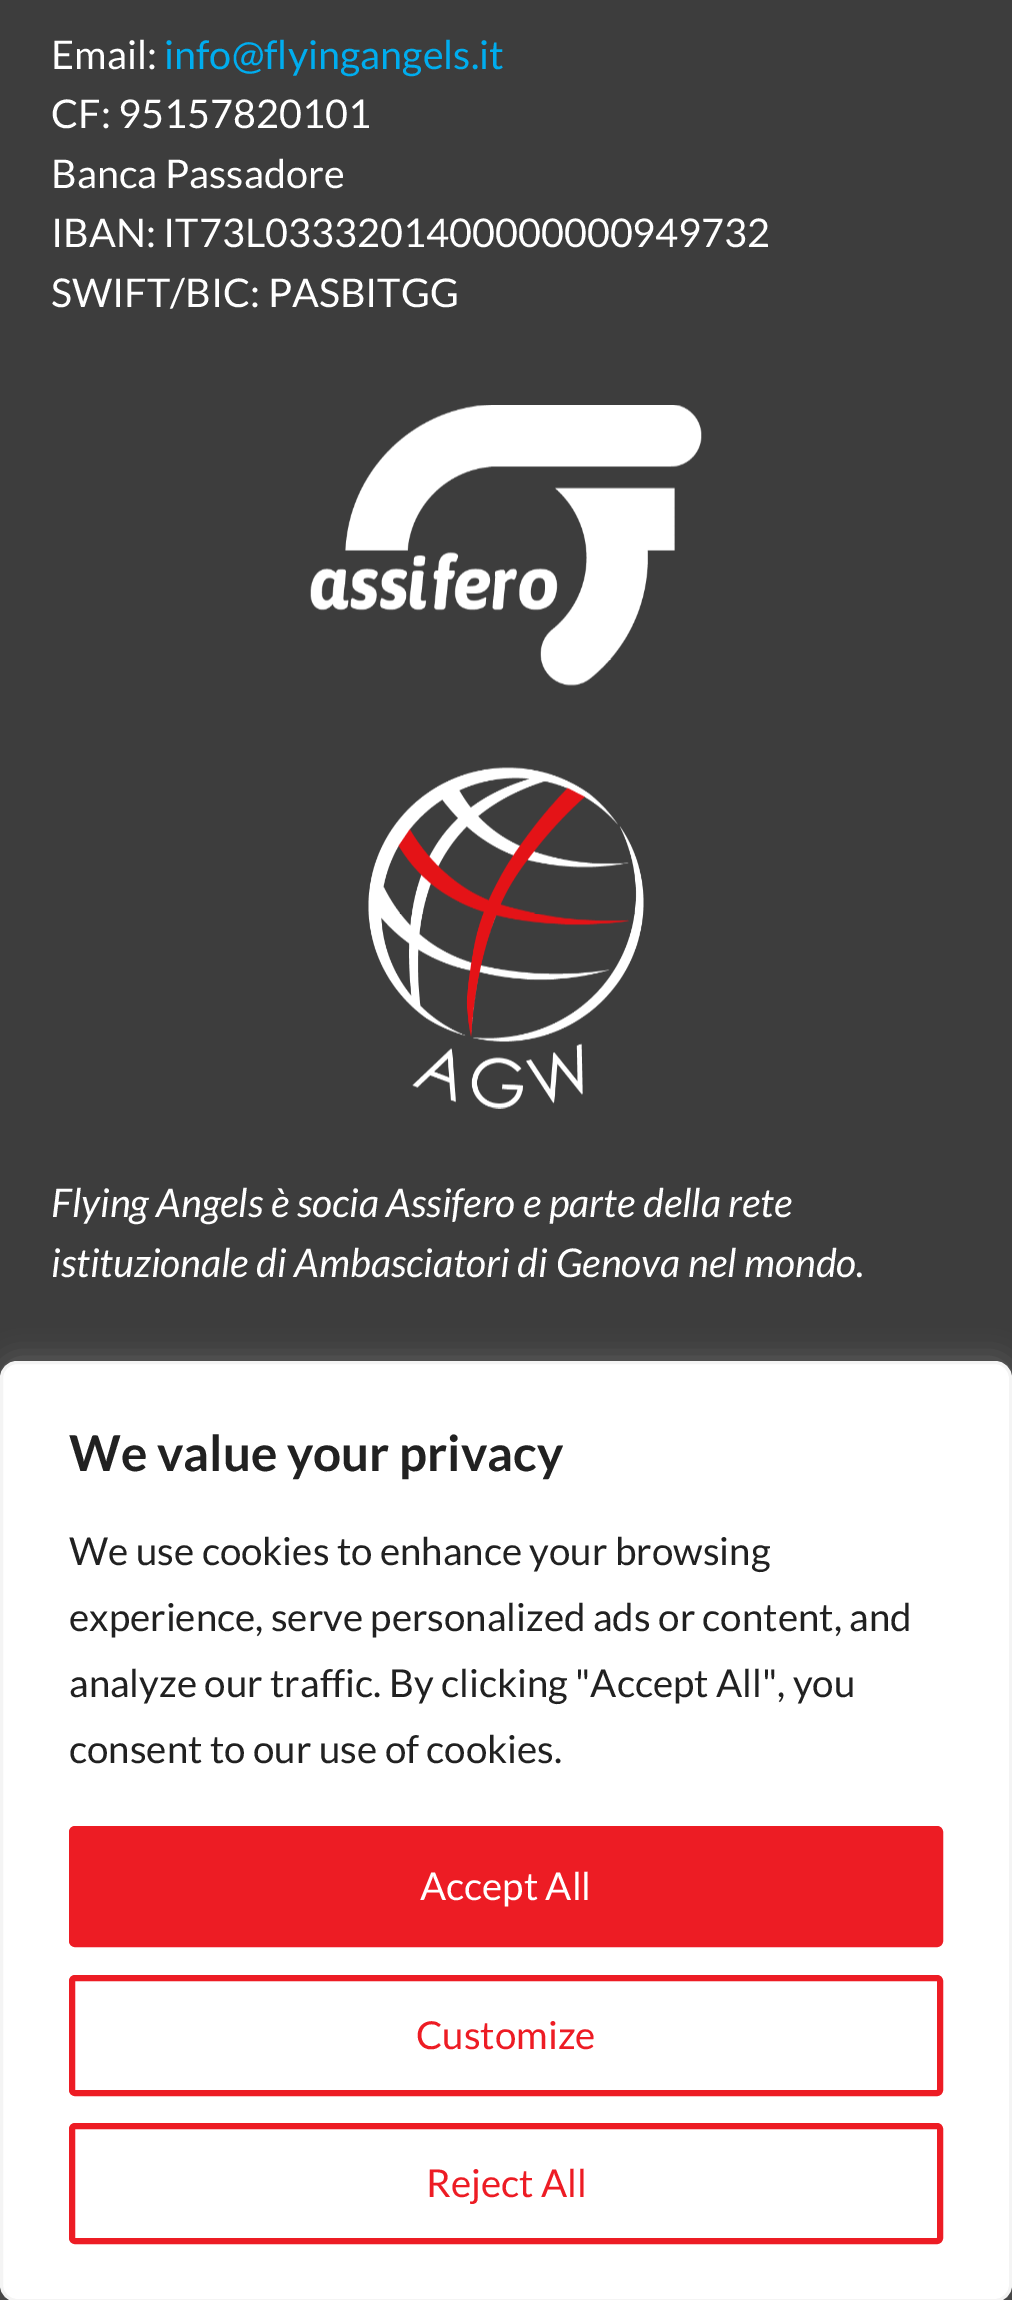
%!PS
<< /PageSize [1012 2300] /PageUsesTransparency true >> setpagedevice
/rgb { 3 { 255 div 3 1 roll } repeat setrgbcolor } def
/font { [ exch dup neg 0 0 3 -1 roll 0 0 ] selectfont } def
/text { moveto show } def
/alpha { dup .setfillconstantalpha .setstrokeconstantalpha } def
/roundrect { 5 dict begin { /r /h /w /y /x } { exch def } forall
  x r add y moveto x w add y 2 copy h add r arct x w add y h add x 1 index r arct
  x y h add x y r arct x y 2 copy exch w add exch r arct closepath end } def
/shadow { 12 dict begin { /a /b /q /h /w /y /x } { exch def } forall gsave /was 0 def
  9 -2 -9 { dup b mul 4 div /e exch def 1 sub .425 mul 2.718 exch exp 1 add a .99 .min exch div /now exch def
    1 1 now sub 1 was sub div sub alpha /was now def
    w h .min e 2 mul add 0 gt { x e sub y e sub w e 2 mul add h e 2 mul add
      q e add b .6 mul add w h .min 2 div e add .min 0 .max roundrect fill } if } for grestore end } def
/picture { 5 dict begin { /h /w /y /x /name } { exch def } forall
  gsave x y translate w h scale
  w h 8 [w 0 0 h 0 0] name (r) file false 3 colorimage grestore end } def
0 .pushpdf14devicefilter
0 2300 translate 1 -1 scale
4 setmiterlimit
61 61 61 rgb
0 0 1012 2300 rectfill
(img_01.rgb) 310 405 392 281 picture
(img_02.rgb) 368 767 276 342 picture
172 171 171 rgb
0 1359 1012 940 17 14 0.3 shadow
255 255 255 rgb
1.5 1362.5 1009 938 15.5 roundrect gsave fill grestore
244 244 244 rgb
3 setlinewidth
stroke
237 28 36 rgb
72 1829 868 115 3 roundrect gsave fill grestore
6 setlinewidth
stroke
72 1978 868 115 3 roundrect stroke
72 2126 868 115 3 roundrect stroke
/Lato-Regular 39.6 font
255 255 255 rgb
(Email:) 51 69 text
0 173 239 rgb
(info@flyingangels.it) 164 69 text
255 255 255 rgb
(CF: 95157820101) 51 128 text
(Banca Passadore) 51 188 text
(IBAN: IT73L0333201400000000949732) 51 247 text
(SWIFT/BIC: PASBITGG) 51 307 text
/Lato-Italic 39.6 font
(Flying Angels è socia Assifero e parte della rete) 51 1217 text
(istituzionale di Ambasciatori di Genova nel mondo.) 51 1277 text
/Lato-Bold 49.5 font
33 33 33 rgb
(We value your privacy) 69 1471 text
/Lato-Regular 38.5 font
(We use cookies to enhance your browsing) 69 1565 text
(experience, serve personalized ads or content, and) 69 1631 text
(analyze our traffic. By clicking "Accept All", you) 69 1697 text
(consent to our use of cookies.) 69 1763 text
255 255 255 rgb
(Accept All) 420 1900 text
237 28 36 rgb
(Customize) 416 2049 text
(Reject All) 426 2197 text
.poppdf14devicefilter showpage
